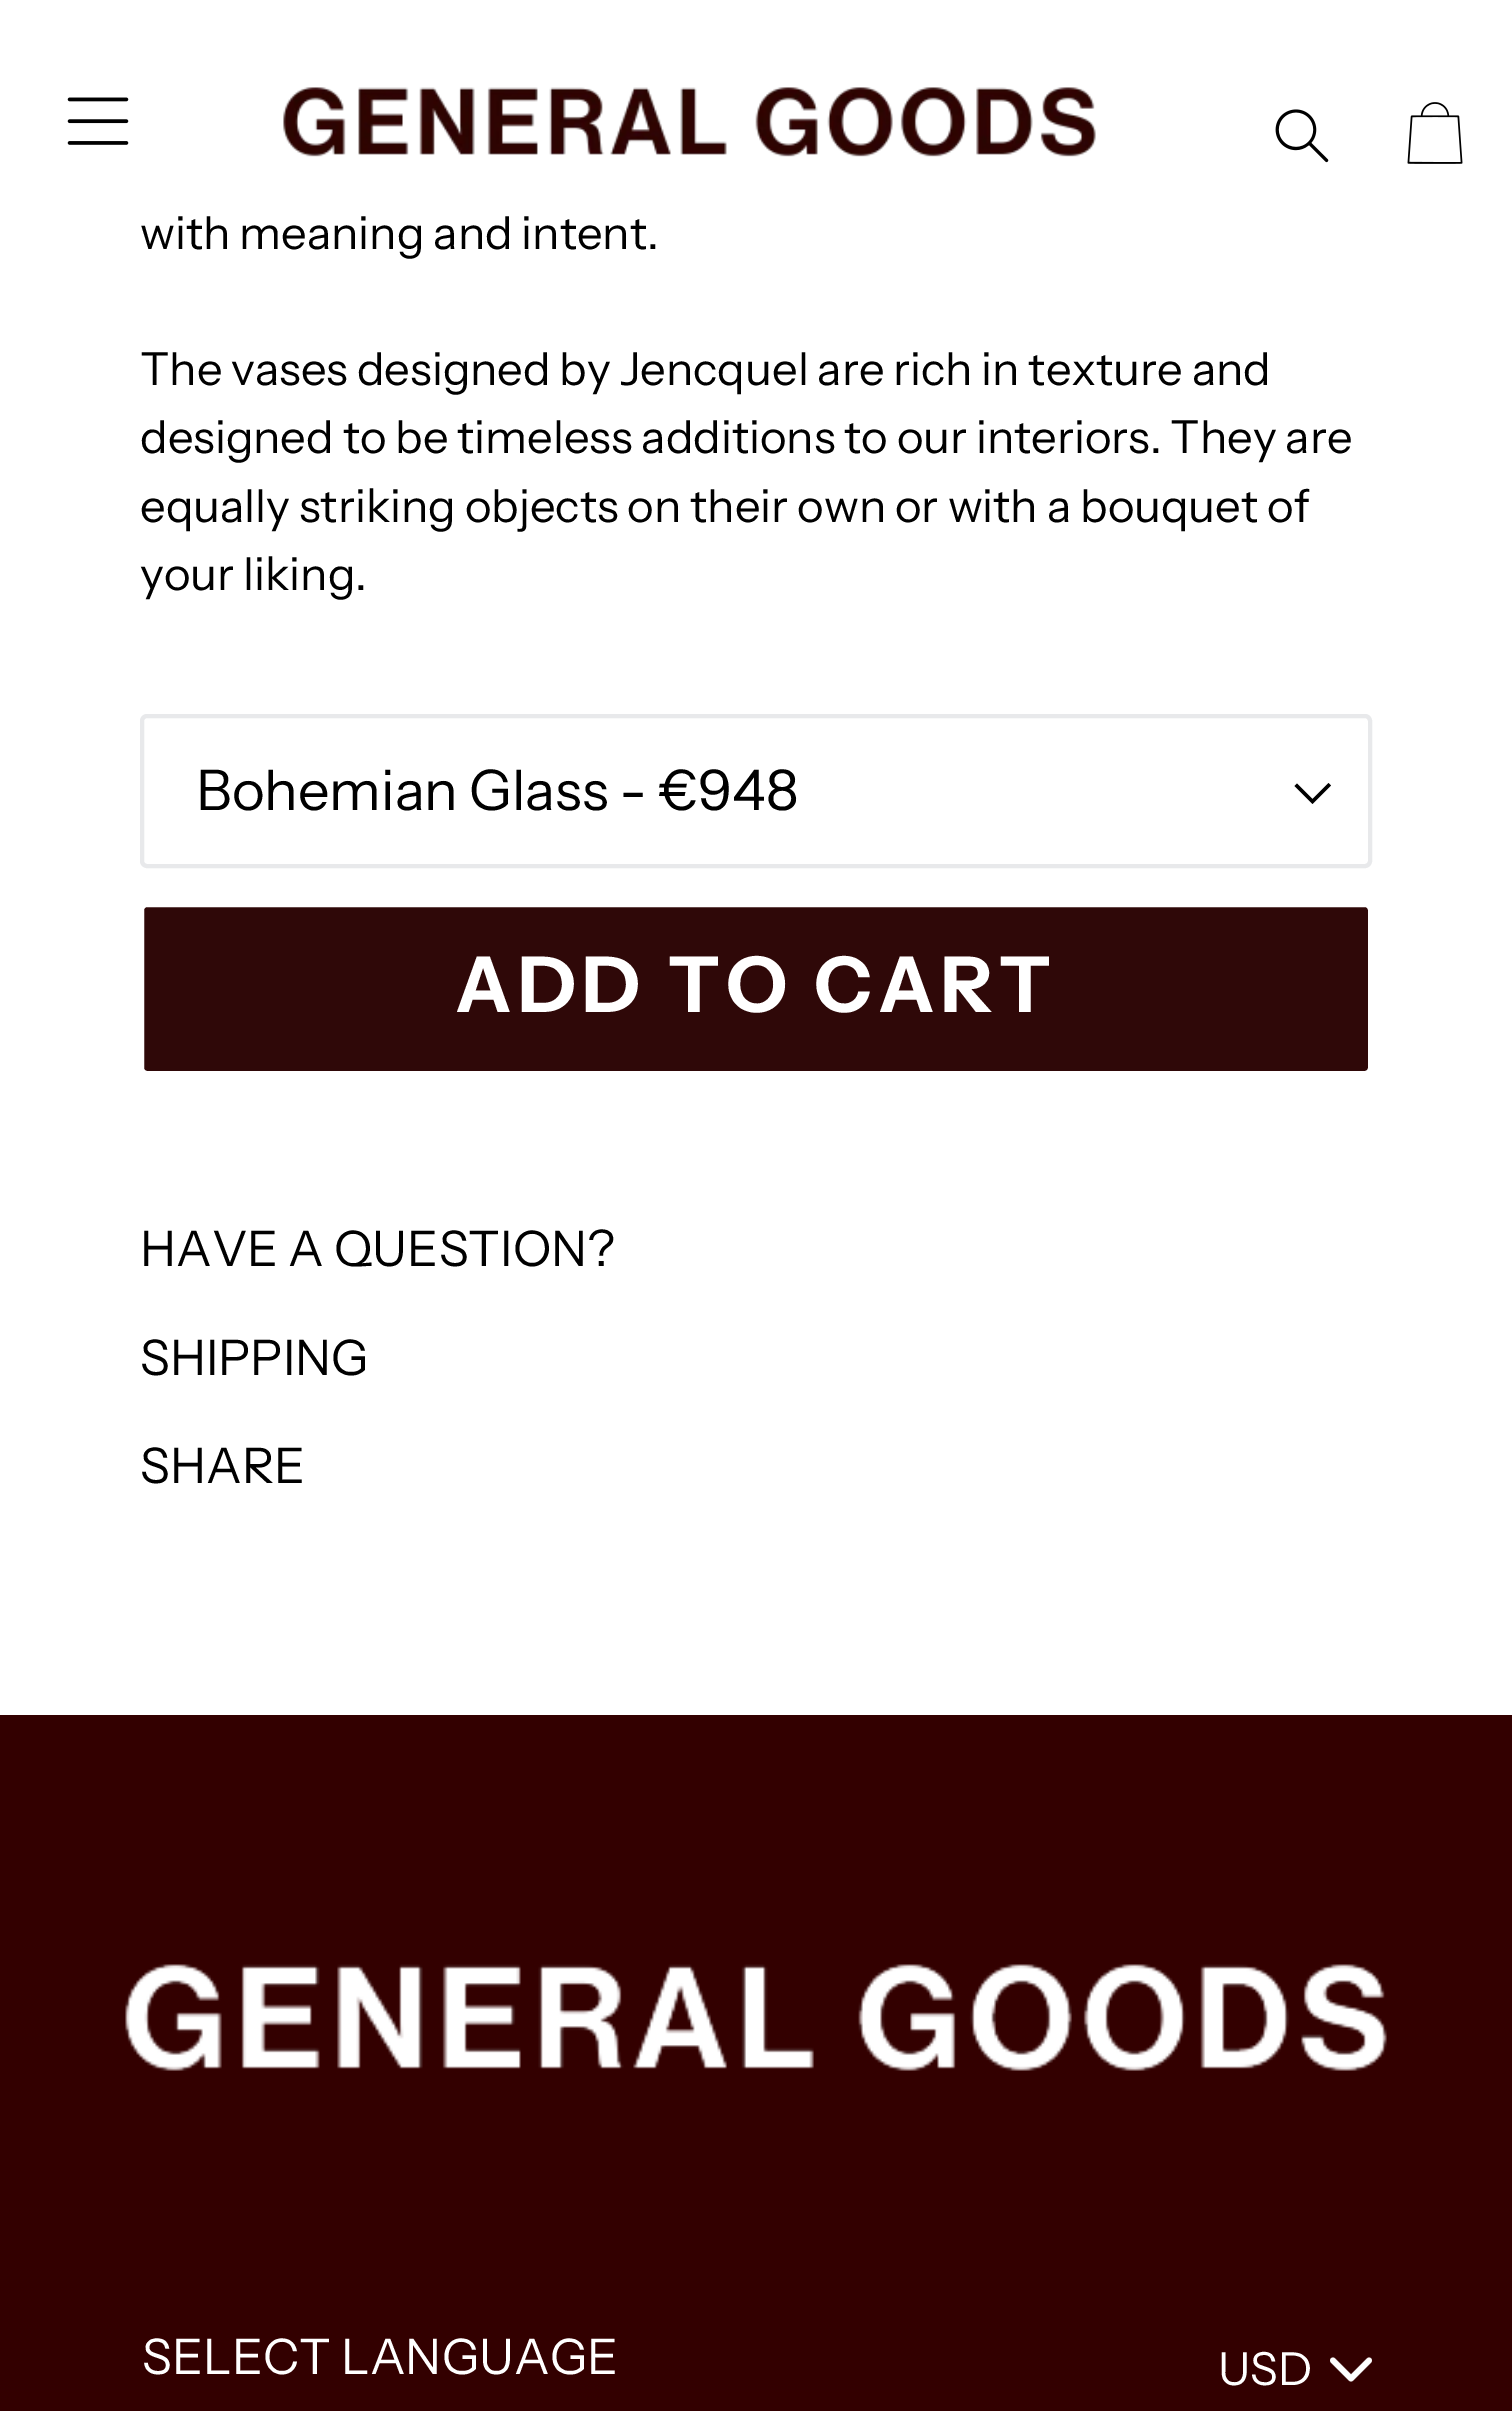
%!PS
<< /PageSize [1512 2411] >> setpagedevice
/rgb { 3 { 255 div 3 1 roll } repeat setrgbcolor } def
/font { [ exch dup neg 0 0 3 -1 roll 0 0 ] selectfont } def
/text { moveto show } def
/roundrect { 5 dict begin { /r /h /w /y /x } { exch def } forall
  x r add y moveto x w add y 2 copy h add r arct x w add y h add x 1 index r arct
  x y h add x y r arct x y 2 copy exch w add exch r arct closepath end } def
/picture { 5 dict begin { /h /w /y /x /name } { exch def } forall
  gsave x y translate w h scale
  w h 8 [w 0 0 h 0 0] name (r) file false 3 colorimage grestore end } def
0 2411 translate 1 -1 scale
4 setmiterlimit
255 255 255 rgb
0 0 1512 2411 rectfill
(img_01.rgb) 67 97 62 48 picture
(img_02.rgb) 283 87 813 70 picture
(img_03.rgb) 1275 109 54 54 picture
(img_04.rgb) 1407 102 56 62 picture
0 0 0 rgb
1312.5 804 moveto -18 -18 rlineto 2.5 -2.5 rlineto 15.5 15.5 rlineto 16 -16 rlineto 2.5 2.5 rlineto closepath fill
232 233 235 rgb
4 setlinewidth
142 716 1228 150 5 roundrect stroke
47 8 8 rgb
142 905 1228 168 5 roundrect gsave fill grestore
255 255 255 rgb
stroke
51 0 0 rgb
0 1715 1512 696 rectfill
(img_05.rgb) 125 1964 1262 107 picture
(img_06.rgb) 1330 2357 42 25 picture
/InstrumentSans-Regular 45.5 font
0 0 0 rgb
(with meaning and intent.) 140 249 text
140 385 moveto -0.25 0 32 (The vases designed by Jencquel are rich in texture and) widthshow
140 453 moveto -0.25 0 32 (designed to be timeless additions to our interiors. They are) widthshow
140 522 moveto -0.1 0 32 (equally striking objects on their own or with a bouquet of) widthshow
(your liking.) 140 590 text
/InstrumentSans-Regular 56 font
(Bohemian Glass - €948) 196 810 text
/InstrumentSans-Bold 77 font
255 255 255 rgb
455 1012 moveto 6.25 0 (ADD TO CART) ashow
/InstrumentSans-Regular 49 font
0 0 0 rgb
(HAVE A QUESTION?) 140 1266 text
(SHIPPING) 140 1375 text
(SHARE) 140 1483 text
255 255 255 rgb
(SELECT LANGUAGE) 142 2374 text
/InstrumentSans-Regular 45.5 font
(USD) 1218 2385 text
showpage
